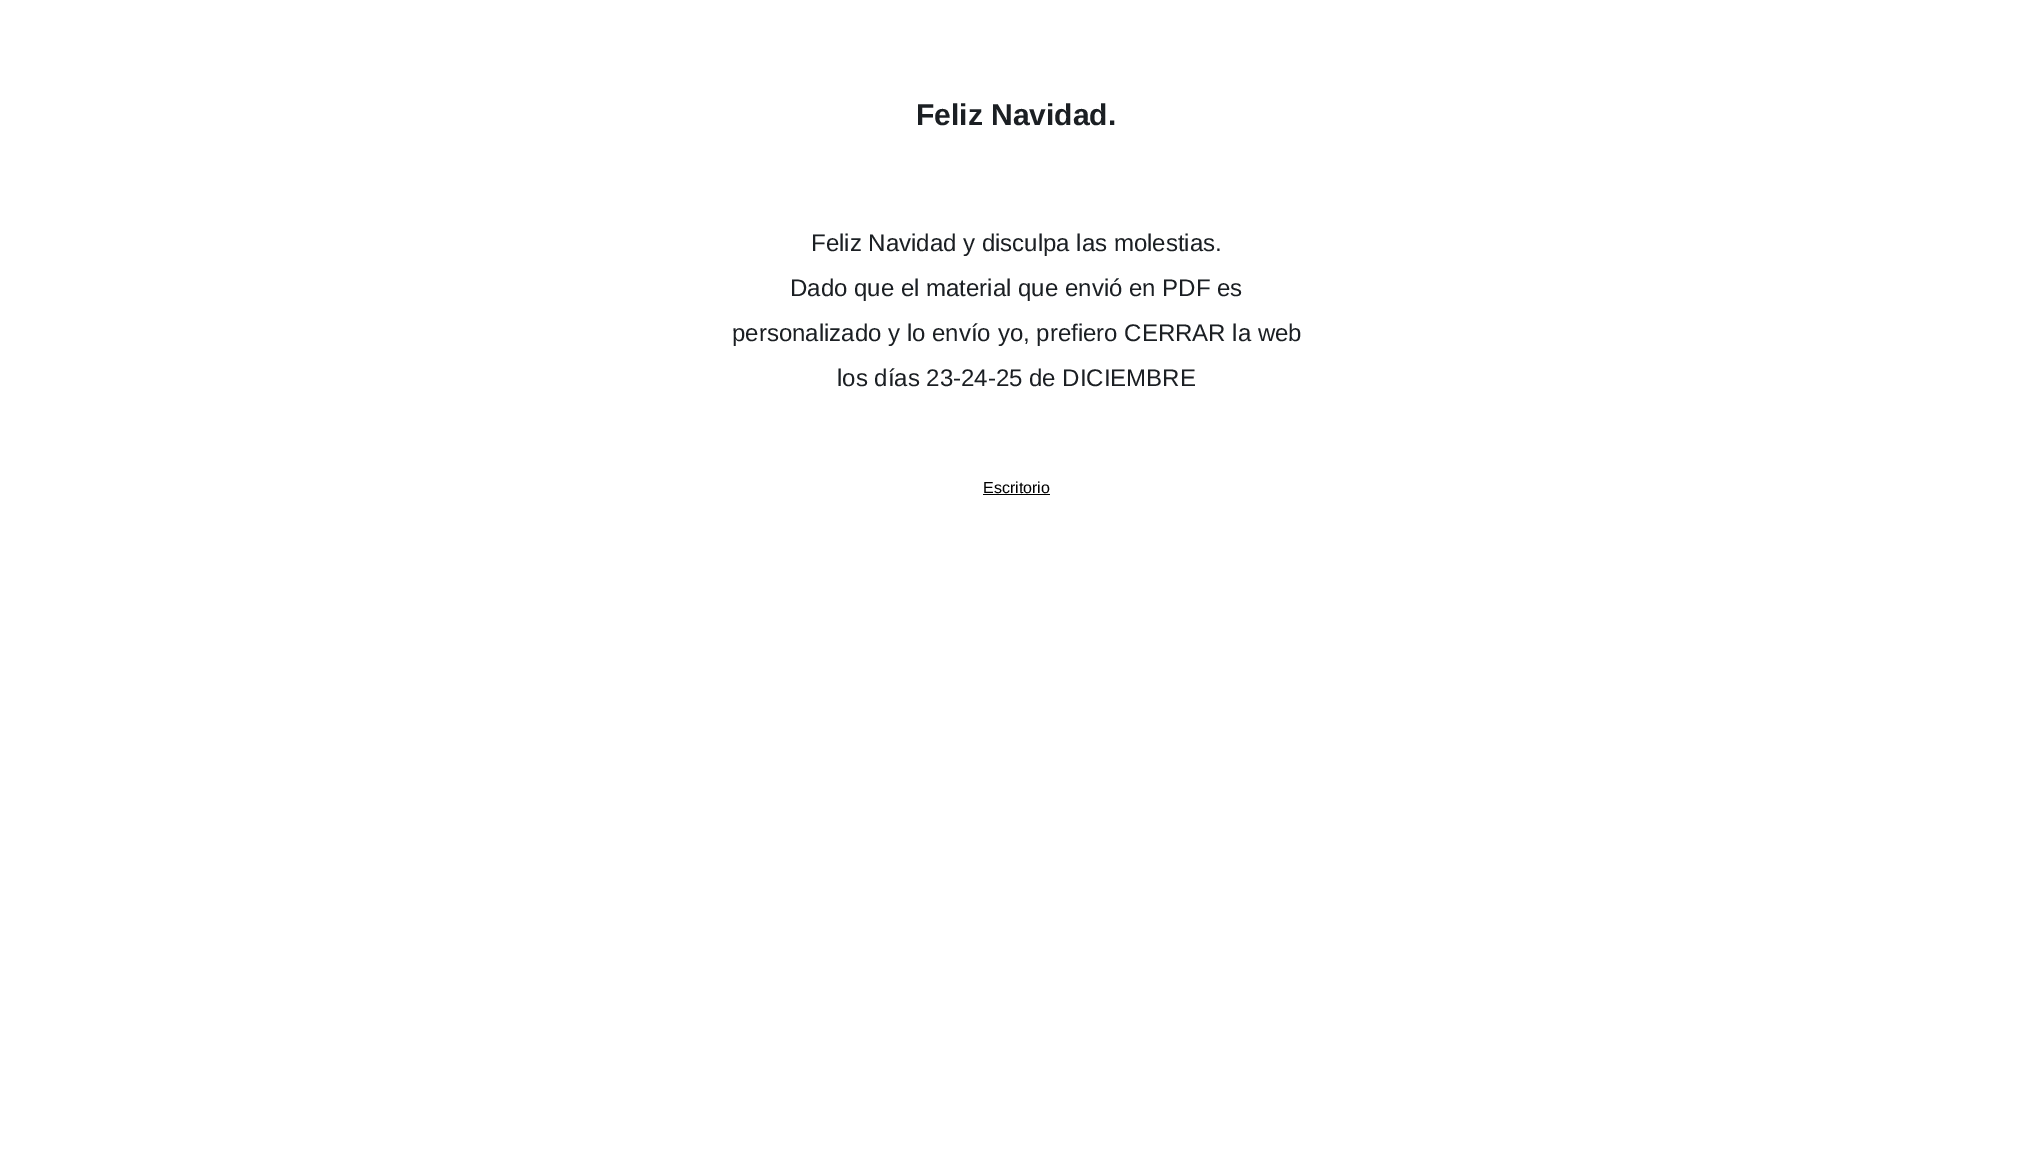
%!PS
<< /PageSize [2033 1156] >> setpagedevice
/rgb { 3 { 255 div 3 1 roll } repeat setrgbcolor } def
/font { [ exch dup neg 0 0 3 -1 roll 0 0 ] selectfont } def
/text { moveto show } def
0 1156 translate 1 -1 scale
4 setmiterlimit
255 255 255 rgb
0 0 2033 1156 rectfill
0 0 0 rgb
983 494 67 1 rectfill
/LiberationSans-Bold 30 font
27 31 35 rgb
(Feliz Navidad.) 916 125 text
/LiberationSans-Regular 24 font
(Feliz Navidad y disculpa las molestias.) 811 251 text
(Dado que el material que envió en PDF es) 790 296 text
(personalizado y lo envío yo, prefiero CERRAR la web) 732 341 text
(los días 23-24-25 de DICIEMBRE) 837 386 text
/LiberationSans-Regular 16 font
0 0 0 rgb
(Escritorio) 983 493 text
showpage
